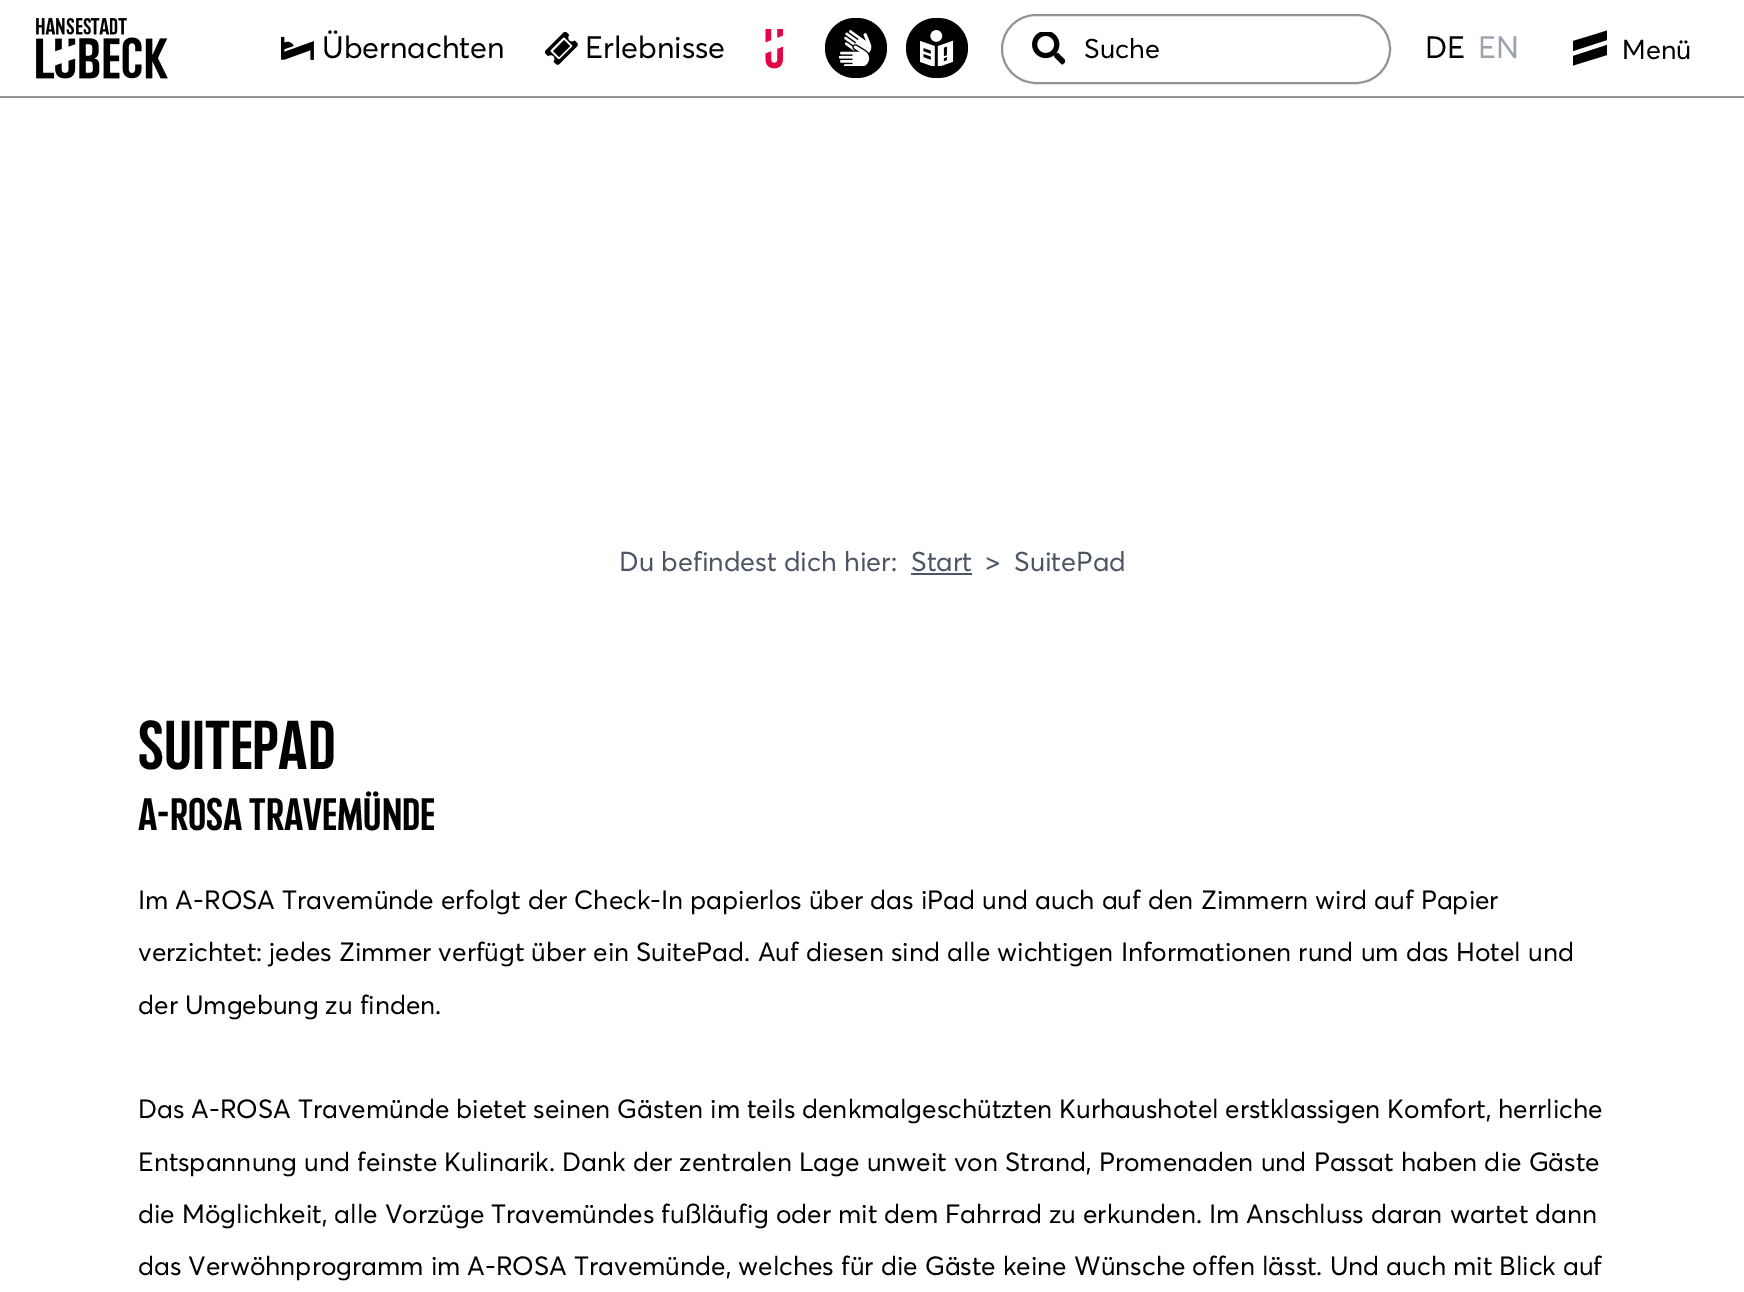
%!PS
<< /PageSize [1744 1292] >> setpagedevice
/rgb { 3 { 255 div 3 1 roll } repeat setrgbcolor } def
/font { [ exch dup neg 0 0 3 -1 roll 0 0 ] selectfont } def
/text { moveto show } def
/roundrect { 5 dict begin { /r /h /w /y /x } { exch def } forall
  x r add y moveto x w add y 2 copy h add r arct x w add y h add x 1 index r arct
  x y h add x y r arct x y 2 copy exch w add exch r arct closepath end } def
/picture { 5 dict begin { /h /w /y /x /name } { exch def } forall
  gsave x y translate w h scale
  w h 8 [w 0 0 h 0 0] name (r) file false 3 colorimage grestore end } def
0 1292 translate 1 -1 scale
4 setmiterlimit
255 255 255 rgb
0 0 1744 1292 rectfill
148 148 148 rgb
0 96 1744 2 rectfill
(img_01.rgb) 36 18 132 61 picture
(img_02.rgb) 281 36 33 24 picture
(img_03.rgb) 545 32 33 33 picture
(img_04.rgb) 765 29 18 40 picture
0 0 0 rgb
825 18 62 60 30 roundrect fill
(img_05.rgb) 839 30 33 36 picture
906 18 62 60 30 roundrect fill
(img_06.rgb) 920 30 34 36 picture
148 148 148 rgb
2 setlinewidth
1002 15 388 68 34 roundrect stroke
(img_07.rgb) 1032 32 33 33 picture
0 0 0 rgb
1594.5 49 moveto -21.5 7 rlineto 0 9.5 rlineto 34 -10.5 rlineto 0 -10 rlineto closepath 1594.5 34.5 moveto -21.5 6.5 rlineto 0 10 rlineto 34 -11 rlineto 0 -9.5 rlineto closepath eofill
75 85 99 rgb
911 573 61 2 rectfill
/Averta-Regular 30.5 font
0 0 0 rgb
(Übernachten) 322 58 text
(Erlebnisse) 585 58 text
/Averta-Regular 27 font
(Suche) 1084 58 text
/Averta-Regular 30.5 font
(DE) 1425 58 text
156 163 175 rgb
(EN) 1478 58 text
/Averta-Regular 27 font
0 0 0 rgb
(Menü) 1622 59 text
75 85 99 rgb
(Du befindest dich hier:) 619 571 text
(Start) 911 571 text
(>) 985 571 text
(SuitePad) 1014 571 text
/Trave-Bold 69 font
0 0 0 rgb
(SuitePad) 138 769 text
/Trave-Bold 45.5 font
(A-Rosa Travemünde) 138 830 text
/Averta-Regular 26.2 font
(Im A-ROSA Travemünde erfolgt der Check-In papierlos über das iPad und auch auf den Zimmern wird auf Papier) 138 909 text
(verzichtet: jedes Zimmer verfügt über ein SuitePad. Auf diesen sind alle wichtigen Informationen rund um das Hotel und) 138 961 text
(der Umgebung zu finden.) 138 1014 text
138 1118 moveto -0.2 0 32 (Das A-ROSA Travemünde bietet seinen Gästen im teils denkmalgeschützten Kurhaushotel erstklassigen Komfort, herrliche) widthshow
(Entspannung und feinste Kulinarik. Dank der zentralen Lage unweit von Strand, Promenaden und Passat haben die Gäste) 138 1171 text
(die Möglichkeit, alle Vorzüge Travemündes fußläufig oder mit dem Fahrrad zu erkunden. Im Anschluss daran wartet dann) 138 1223 text
(das Verwöhnprogramm im A-ROSA Travemünde, welches für die Gäste keine Wünsche offen lässt. Und auch mit Blick auf) 138 1275 text
showpage
